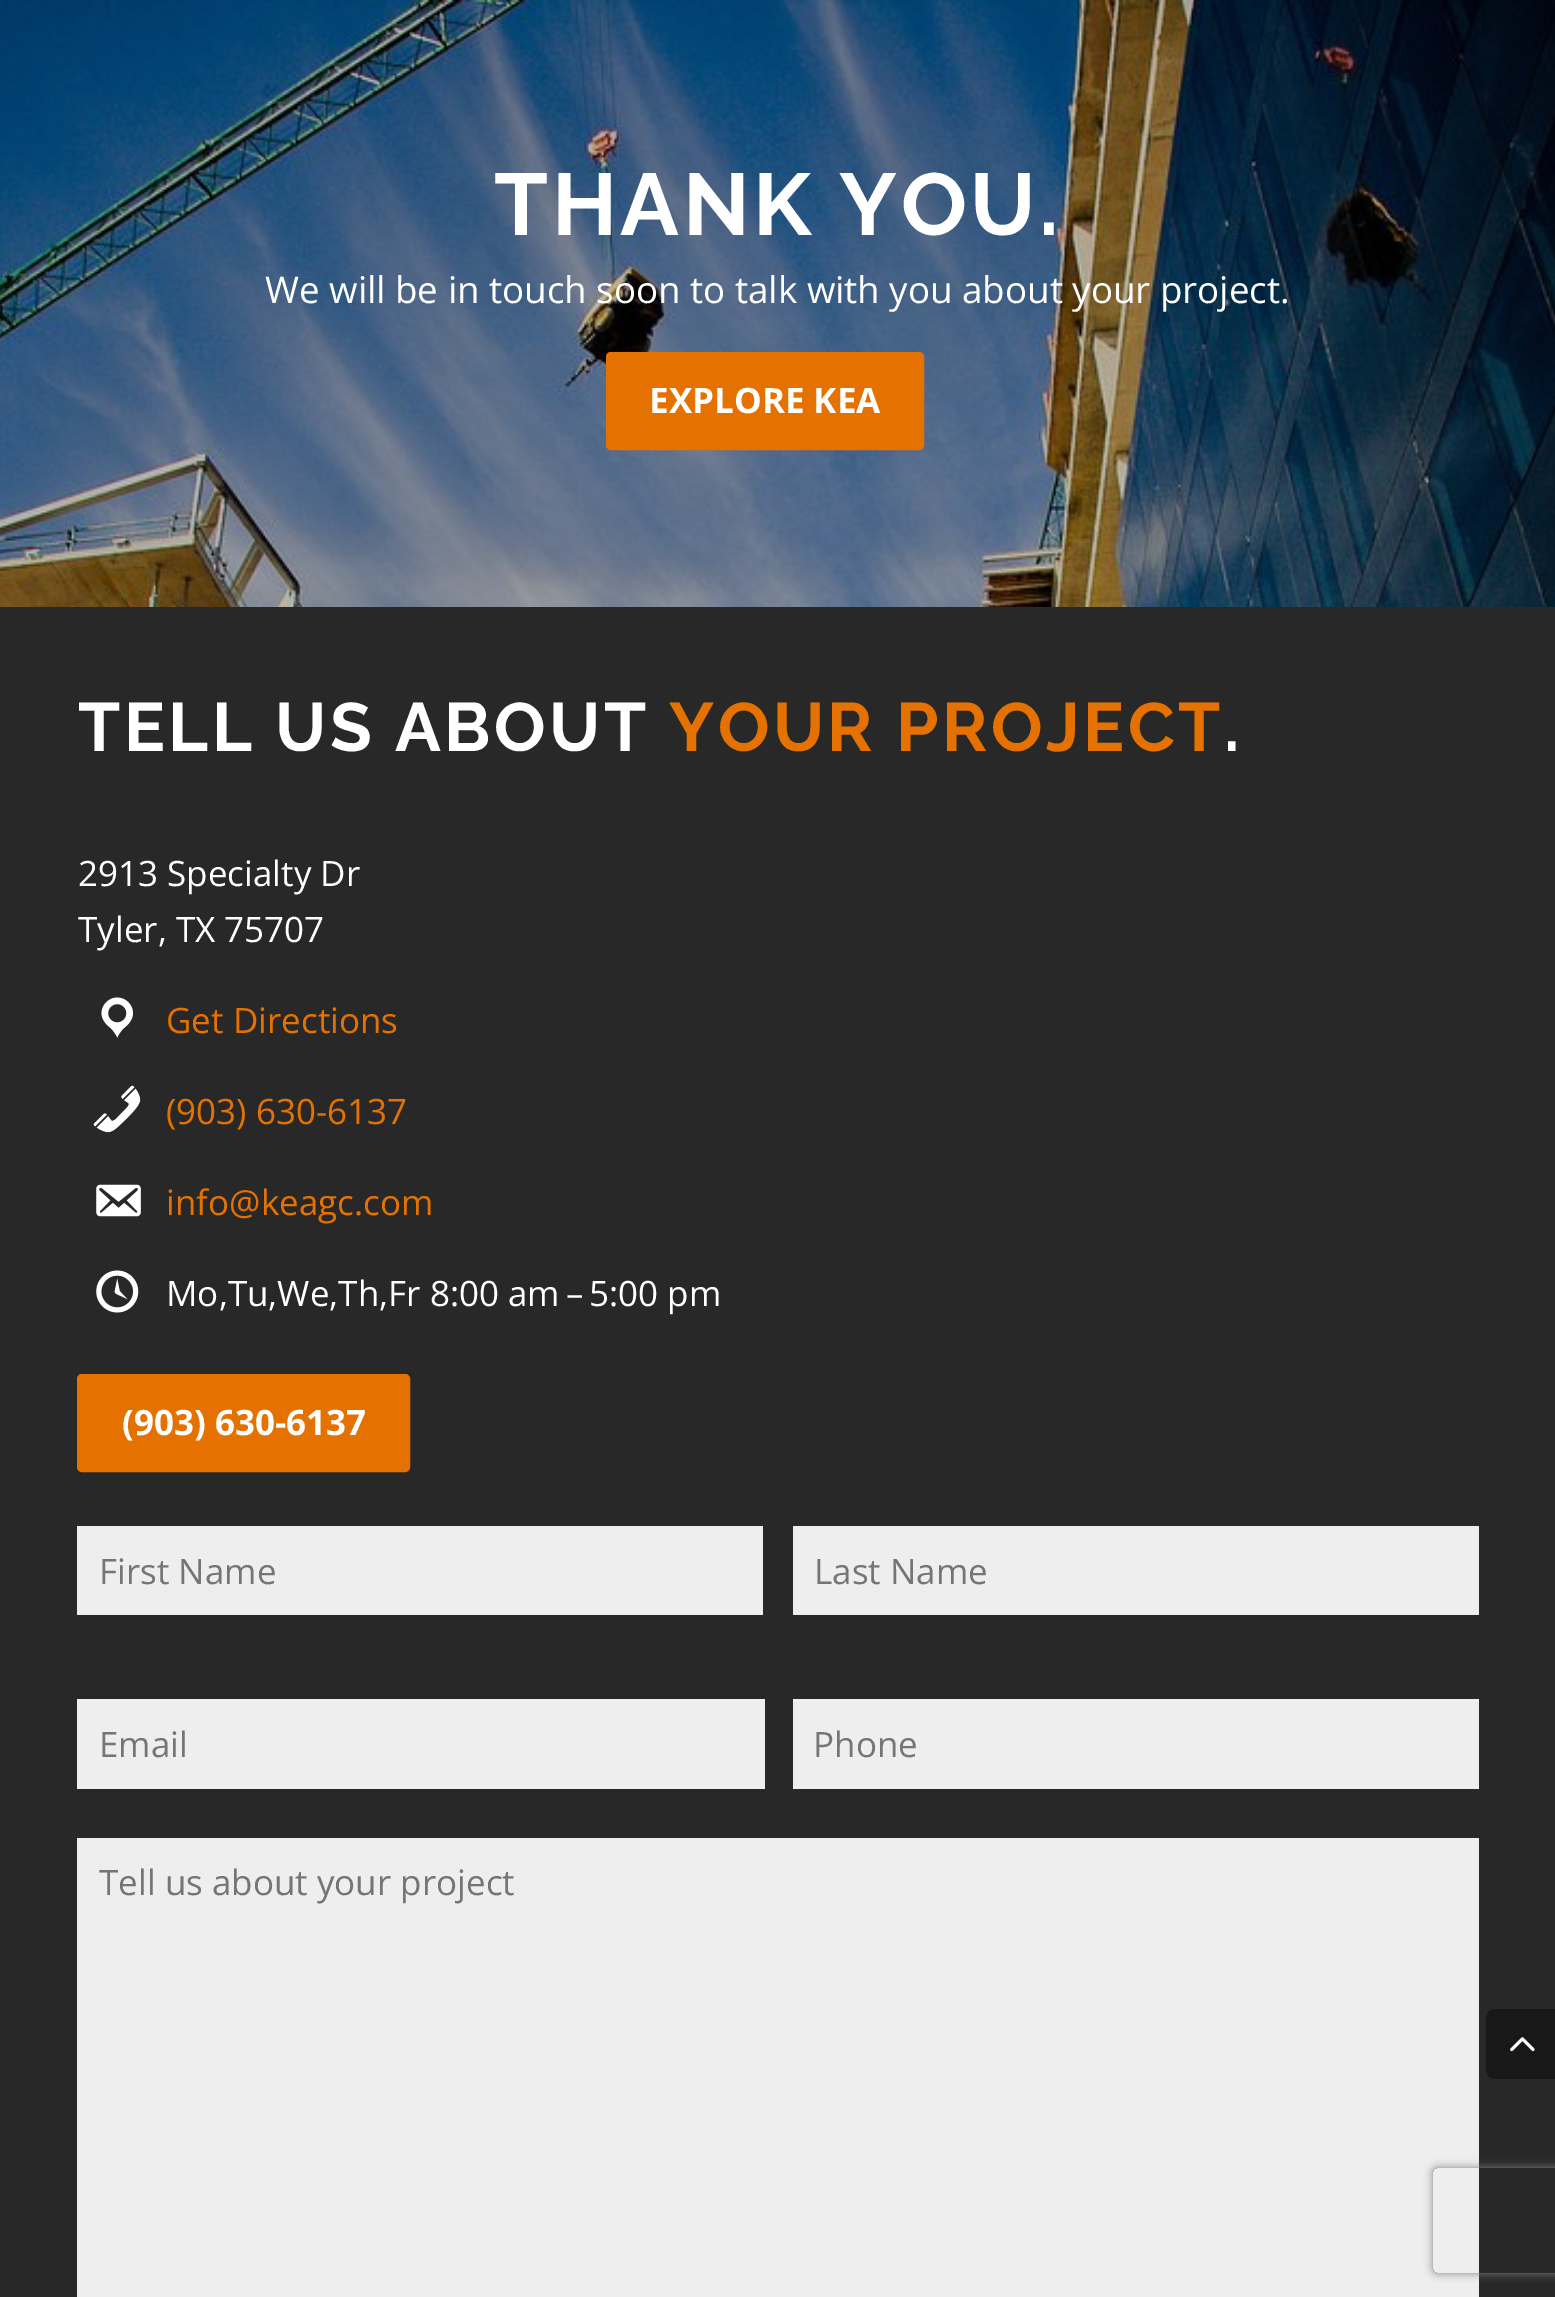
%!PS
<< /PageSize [1555 2297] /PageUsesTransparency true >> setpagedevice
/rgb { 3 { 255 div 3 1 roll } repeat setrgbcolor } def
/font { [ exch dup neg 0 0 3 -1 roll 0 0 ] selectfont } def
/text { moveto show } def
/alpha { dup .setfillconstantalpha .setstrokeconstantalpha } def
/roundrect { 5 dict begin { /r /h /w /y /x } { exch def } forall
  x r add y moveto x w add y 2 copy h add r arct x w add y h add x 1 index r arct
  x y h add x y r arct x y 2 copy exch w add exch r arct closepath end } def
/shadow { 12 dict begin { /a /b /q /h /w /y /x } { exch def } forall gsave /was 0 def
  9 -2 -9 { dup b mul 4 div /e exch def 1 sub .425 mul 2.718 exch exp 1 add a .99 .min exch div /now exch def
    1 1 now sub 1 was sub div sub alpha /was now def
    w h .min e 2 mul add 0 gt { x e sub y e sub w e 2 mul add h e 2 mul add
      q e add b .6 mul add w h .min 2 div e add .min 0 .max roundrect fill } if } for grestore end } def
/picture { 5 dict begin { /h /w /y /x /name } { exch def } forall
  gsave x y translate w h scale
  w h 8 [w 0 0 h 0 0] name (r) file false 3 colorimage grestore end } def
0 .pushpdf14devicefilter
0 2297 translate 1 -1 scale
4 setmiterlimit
255 255 255 rgb
0 0 1555 2297 rectfill
(img_01.rgb) 0 0 1555 607 picture
229 114 0 rgb
610.5 356.5 309 89 0.5 roundrect gsave fill grestore
9 setlinewidth
stroke
40 40 40 rgb
0 607 1555 1690 rectfill
(img_02.rgb) 101 997 32 41 picture
(img_03.rgb) 93 1085 48 48 picture
(img_04.rgb) 96 1184 45 33 picture
(img_05.rgb) 96 1270 43 43 picture
229 114 0 rgb
81.5 1378.5 324 89 0.5 roundrect gsave fill grestore
stroke
238 238 238 rgb
77 1526 686 89 rectfill
793 1526 686 89 rectfill
77 1699 688 90 rectfill
793 1699 686 90 rectfill
77 1838 1402 459 rectfill
gsave
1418 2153 moveto 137 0 rlineto 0 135 rlineto -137 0 rlineto closepath 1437 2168 moveto 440 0 rlineto 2 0 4 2 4 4 rcurveto 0 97 rlineto 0 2 -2 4 -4 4 rcurveto -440 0 rlineto -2 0 -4 -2 -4 -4 rcurveto 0 -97 rlineto 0 -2 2 -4 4 -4 rcurveto closepath eoclip newpath
128 128 128 rgb
1433 2168 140 105 4 4.5 1 shadow
grestore
24 24 24 rgb
1495 2009 moveto 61 0 rlineto 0 70 rlineto -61 0 rlineto -5 0 -9 -4 -9 -9 rcurveto 0 -52 rlineto 0 -5 4 -9 9 -9 rcurveto closepath fill
(img_06.rgb) 1510 2037 25 15 picture
/Raleway-Bold 87.5 font
255 255 255 rgb
494 235 moveto 3.5 0 (THANK YOU.) ashow
/OpenSans-Regular 36.75 font
(We will be in touch soon to talk with you about your project.) 265 303 text
/OpenSans-Bold 35 font
(EXPLORE KEA) 649 413 text
/Raleway-Bold 68.25 font
78 751 moveto 3.5 0 (TELL US ABOUT) ashow
229 114 0 rgb
669 751 moveto 3.5 0 (YOUR PROJECT) ashow
255 255 255 rgb
1224 751 moveto 3.5 0 (.) ashow
/OpenSans-Regular 35 font
(2913 Specialty Dr) 78 886 text
(Tyler, TX 75707) 78 942 text
229 114 0 rgb
(Get Directions) 166 1033 text
(\(903\) 630-6137) 166 1124 text
(info@keagc.com) 166 1215 text
255 255 255 rgb
(Mo,Tu,We,Th,Fr 8:00 am – 5:00 pm) 166 1306 text
/OpenSans-Bold 35 font
(\(903\) 630-6137) 122 1435 text
/OpenSans-Regular 35 font
117 117 117 rgb
(First Name) 99 1584 text
(Last Name) 814 1584 text
(Email) 99 1757 text
(Phone) 813 1757 text
(Tell us about your project) 99 1895 text
.poppdf14devicefilter showpage
